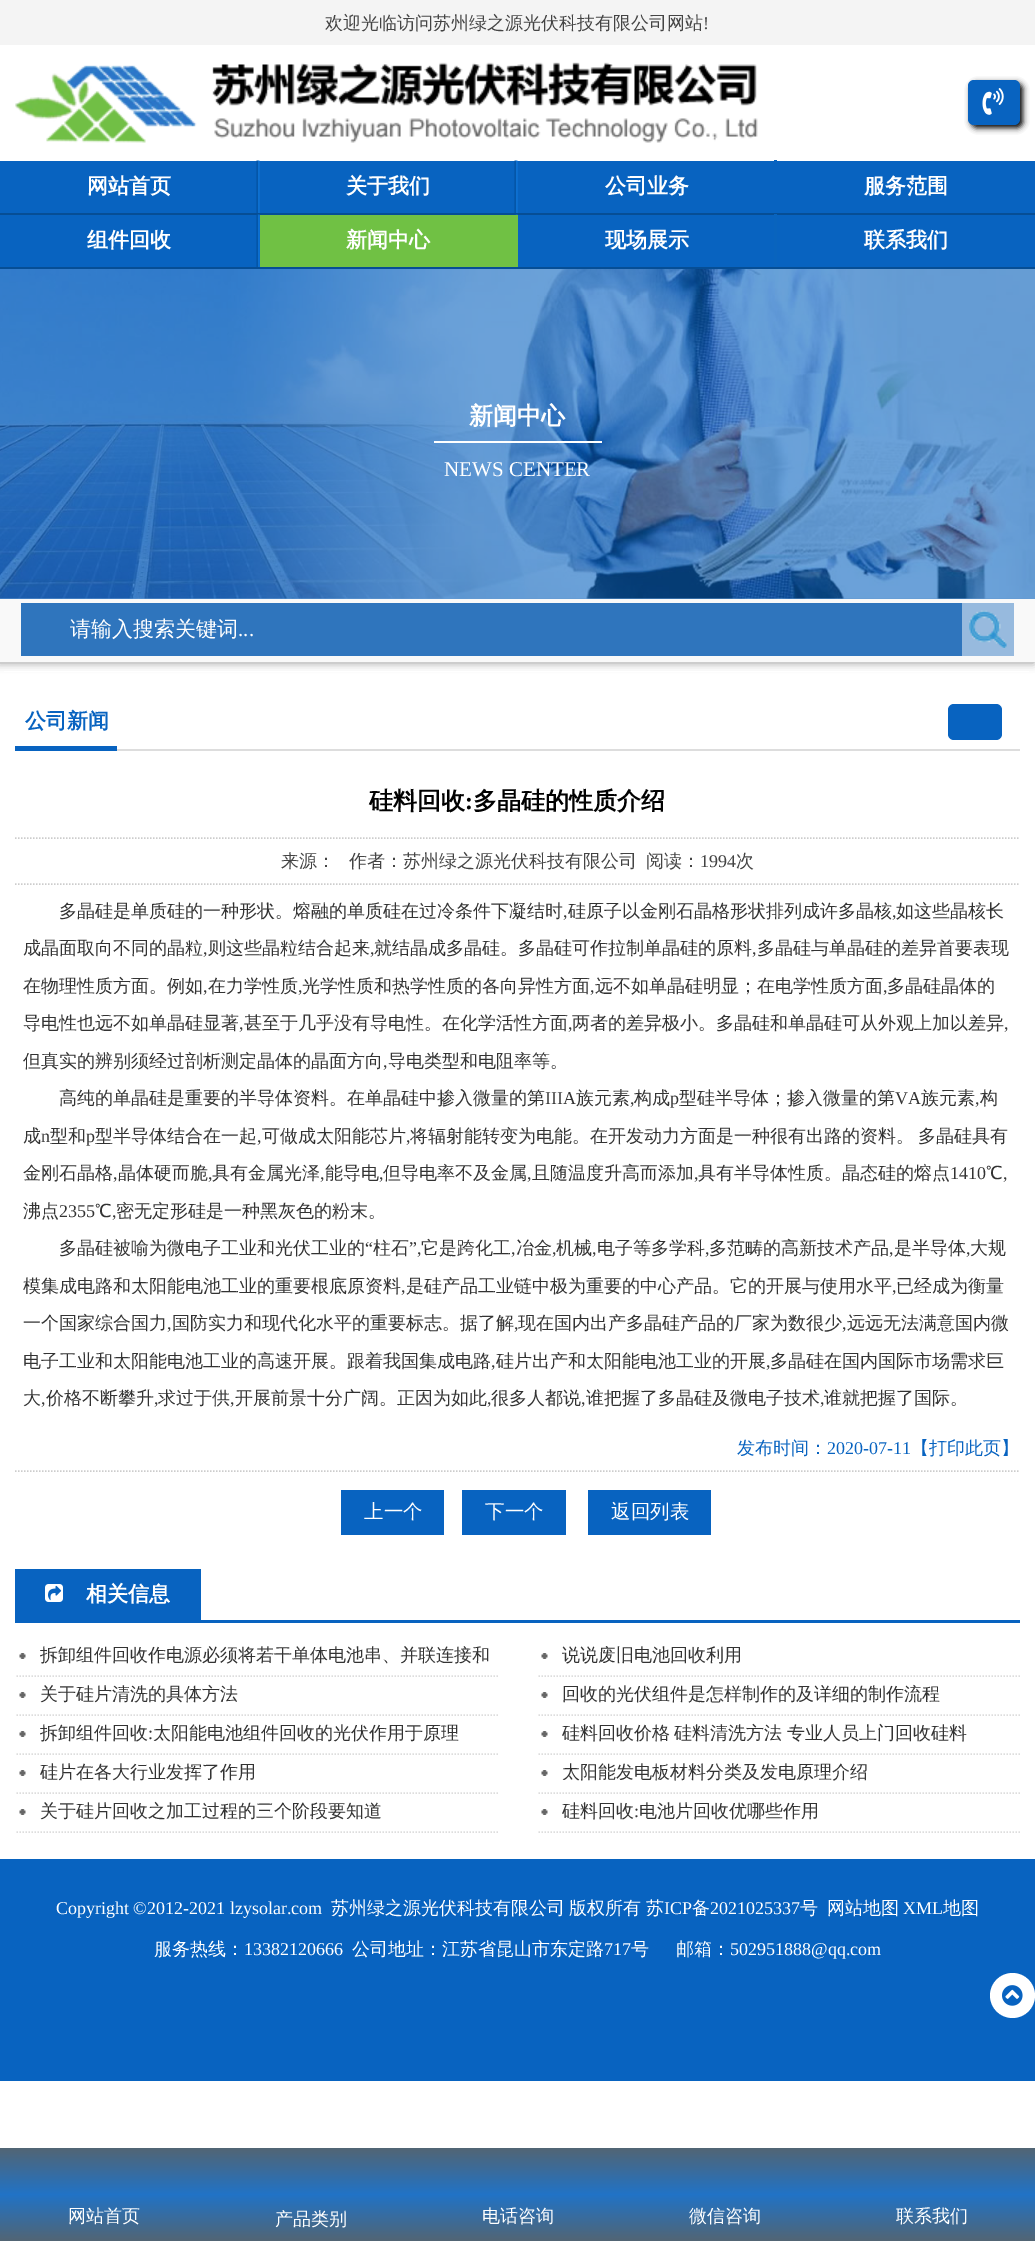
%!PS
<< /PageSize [1035 2241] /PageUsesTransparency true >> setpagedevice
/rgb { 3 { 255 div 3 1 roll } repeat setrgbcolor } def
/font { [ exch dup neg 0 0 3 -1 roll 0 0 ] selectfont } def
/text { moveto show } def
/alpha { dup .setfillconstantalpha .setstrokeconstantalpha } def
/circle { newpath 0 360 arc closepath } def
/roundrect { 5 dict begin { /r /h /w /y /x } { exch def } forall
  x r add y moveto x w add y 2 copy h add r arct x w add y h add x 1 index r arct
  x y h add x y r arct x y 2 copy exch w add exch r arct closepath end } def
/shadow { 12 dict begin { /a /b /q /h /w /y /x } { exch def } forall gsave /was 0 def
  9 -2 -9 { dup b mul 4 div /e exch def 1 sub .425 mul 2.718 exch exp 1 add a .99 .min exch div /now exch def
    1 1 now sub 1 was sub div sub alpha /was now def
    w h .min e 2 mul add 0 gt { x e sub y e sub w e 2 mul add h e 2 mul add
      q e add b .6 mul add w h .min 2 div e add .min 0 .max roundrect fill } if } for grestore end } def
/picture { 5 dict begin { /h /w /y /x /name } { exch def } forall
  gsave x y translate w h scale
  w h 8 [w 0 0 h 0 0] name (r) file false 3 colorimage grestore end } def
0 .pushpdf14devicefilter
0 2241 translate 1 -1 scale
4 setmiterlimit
255 255 255 rgb
0 0 1035 2241 rectfill
244 244 244 rgb
0 0 1035 45 rectfill
(img_01.rgb) 15 62 743 81 picture
0 0 0 rgb
971 83 52 45 6 3 1 shadow
8 99 192 rgb
968 80 52 45 6 roundrect fill
(img_02.rgb) 982 88 22 27 picture
0 161 1035 106 rectfill
(img_03.rgb) 256 160 4 53 picture
6 78 149 rgb
0 213 1035 2 rectfill
(img_03.rgb) 514 160 4 53 picture
9 100 190 rgb
774 160 3 1 rectfill
(img_04.rgb) 256 214 4 53 picture
6 78 149 rgb
0 267 518 2 rectfill
(img_05.rgb) 514 214 4 1 picture
112 193 68 rgb
260 215 258 52 rectfill
9 100 190 rgb
774 214 3 55 rectfill
6 78 149 rgb
518 267 517 2 rectfill
153 153 153 rgb
-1 600 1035 63 0 4.5 1 shadow
(img_06.rgb) 0 269 1035 330 picture
0.6 alpha
8 99 192 rgb
0 269 1035 330 rectfill
1 alpha
255 255 255 rgb
434 441 168 2 rectfill
249 249 249 rgb
0 599 1035 63 rectfill
47 117 189 rgb
21 603 941 53 rectfill
151 186 222 rgb
962 603 52 53 rectfill
(img_07.rgb) 969 610 38 38 picture
255 255 255 rgb
4 671 1025 1 rectfill
221 221 221 rgb
117 749 903 2 rectfill
8 99 192 rgb
15 746 102 5 rectfill
948 704 54 36 6 roundrect fill
204 204 204 rgb
1.5 setlinewidth
[1.5 1.5] 0 setdash
15 838 moveto 1005 0 rlineto stroke
15 884 moveto 1005 0 rlineto stroke
15 1471 moveto 1005 0 rlineto stroke
8 99 192 rgb
341 1490 103 45 rectfill
462 1490 104 45 rectfill
588 1490 123 45 rectfill
15 1620 1005 3 rectfill
15 1569 186 51 rectfill
(img_08.rgb) 45 1584 18 18 picture
(img_09.rgb) 19 1653 7 6 picture
221 221 221 rgb
16.5 1676 moveto 481.5 0 rlineto stroke
(img_09.rgb) 541 1653 7 6 picture
538.5 1676 moveto 481.5 0 rlineto stroke
(img_09.rgb) 19 1692 7 6 picture
16.5 1715 moveto 481.5 0 rlineto stroke
(img_09.rgb) 541 1692 7 6 picture
538.5 1715 moveto 481.5 0 rlineto stroke
(img_09.rgb) 19 1731 7 6 picture
16.5 1754 moveto 481.5 0 rlineto stroke
(img_09.rgb) 541 1731 7 6 picture
538.5 1754 moveto 481.5 0 rlineto stroke
(img_09.rgb) 19 1770 7 6 picture
16.5 1793 moveto 481.5 0 rlineto stroke
(img_09.rgb) 541 1770 7 6 picture
538.5 1793 moveto 481.5 0 rlineto stroke
(img_09.rgb) 19 1809 7 6 picture
16.5 1832 moveto 481.5 0 rlineto stroke
(img_09.rgb) 541 1809 7 6 picture
538.5 1832 moveto 481.5 0 rlineto stroke
8 99 192 rgb
0 1859 1035 222 rectfill
255 255 255 rgb
1012.5 1995.5 22.5 circle fill
(img_10.rgb) 1002 1985 21 21 picture
gsave 0 2148 moveto 1035 0 rlineto 0 93 rlineto -1035 0 rlineto closepath clip newpath
<< /ShadingType 2 /ColorSpace /DeviceRGB /Coords [518 2148 518 2241] /Extend [true true] /Function << /FunctionType 3 /Domain [0 1] /Functions [<< /FunctionType 2 /Domain [0 1] /C0 [0.322 0.396 0.455] /C1 [0.129 0.451 0.776] /N 1 >> << /FunctionType 2 /Domain [0 1] /C0 [0.129 0.451 0.776] /C1 [0.322 0.396 0.455] /N 1 >>] /Bounds [0.5] /Encode [0 1 0 1] >> >> shfill grestore
/WenQuanYiZenHei-Medium 18 font
68 68 68 rgb
(欢迎光临访问苏州绿之源光伏科技有限公司网站) 325 29 text
/LiberationSerif-Regular 18 font
(!) 703 29 text
/WenQuanYiZenHei-Bold 21 font
255 255 255 rgb
(网站首页) 87 193 text
(关于我们) 346 193 text
(公司业务) 605 193 text
(服务范围) 864 193 text
(组件回收) 87 247 text
(新闻中心) 346 247 text
(现场展示) 605 247 text
(联系我们) 864 247 text
/WenQuanYiZenHei-Bold 24 font
(新闻中心) 469 424 text
/LiberationSerif-Regular 21 font
(NEWS CENTER) 444 476 text
/WenQuanYiZenHei-Medium 21 font
(请输入搜索关键词) 70 636 text
/LiberationSerif-Regular 21 font
(...) 238 636 text
/WenQuanYiZenHei-Bold 21 font
8 99 192 rgb
(公司新闻) 25 728 text
/WenQuanYiZenHei-Bold 24 font
1 1 1 rgb
(硅料回收) 369 809 text
/LiberationSerif-Bold 24 font
(:) 465 809 text
/WenQuanYiZenHei-Bold 24 font
(多晶硅的性质介绍) 473 809 text
/WenQuanYiZenHei-Medium 18 font
68 68 68 rgb
(来源：) 281 867 text
(作者：苏州绿之源光伏科技有限公司) 349 867 text
(阅读：) 646 867 text
/LiberationSerif-Regular 18 font
(1994) 700 867 text
/WenQuanYiZenHei-Medium 18 font
(次) 736 867 text
51 51 51 rgb
(多晶硅是单质硅的一种形状。熔融的单质硅在过冷条件下凝结时) 59 917 text
/LiberationSerif-Regular 18 font
(,) 563 917 text
/WenQuanYiZenHei-Medium 18 font
(硅原子以金刚石晶格形状排列成许多晶核) 568 917 text
/LiberationSerif-Regular 18 font
(,) 892 917 text
/WenQuanYiZenHei-Medium 18 font
(如这些晶核长) 896 917 text
(成晶面取向不同的晶粒) 23 954 text
/LiberationSerif-Regular 18 font
(,) 203 954 text
/WenQuanYiZenHei-Medium 18 font
(则这些晶粒结合起来) 208 954 text
/LiberationSerif-Regular 18 font
(,) 370 954 text
/WenQuanYiZenHei-Medium 18 font
(就结晶成多晶硅。多晶硅可作拉制单晶硅的原料) 374 954 text
/LiberationSerif-Regular 18 font
(,) 752 954 text
/WenQuanYiZenHei-Medium 18 font
(多晶硅与单晶硅的差异首要表现) 757 954 text
(在物理性质方面。例如) 23 992 text
/LiberationSerif-Regular 18 font
(,) 203 992 text
/WenQuanYiZenHei-Medium 18 font
(在力学性质) 208 992 text
/LiberationSerif-Regular 18 font
(,) 298 992 text
/WenQuanYiZenHei-Medium 18 font
(光学性质和热学性质的各向异性方面) 302 992 text
/LiberationSerif-Regular 18 font
(,) 590 992 text
/WenQuanYiZenHei-Medium 18 font
(远不如单晶硅明显；在电学性质方面) 595 992 text
/LiberationSerif-Regular 18 font
(,) 883 992 text
/WenQuanYiZenHei-Medium 18 font
(多晶硅晶体的) 887 992 text
(导电性也远不如单晶硅显著) 23 1029 text
/LiberationSerif-Regular 18 font
(,) 239 1029 text
/WenQuanYiZenHei-Medium 18 font
(甚至于几乎没有导电性。在化学活性方面) 244 1029 text
/LiberationSerif-Regular 18 font
(,) 568 1029 text
/WenQuanYiZenHei-Medium 18 font
(两者的差异极小。多晶硅和单晶硅可从外观上加以差异) 572 1029 text
/LiberationSerif-Regular 18 font
(,) 1004 1029 text
/WenQuanYiZenHei-Medium 18 font
(但真实的辨别须经过剖析测定晶体的晶面方向) 23 1067 text
/LiberationSerif-Regular 18 font
(,) 383 1067 text
/WenQuanYiZenHei-Medium 18 font
(导电类型和电阻率等。) 388 1067 text
(高纯的单晶硅是重要的半导体资料。在单晶硅中掺入微量的第) 59 1104 text
/LiberationSerif-Regular 18 font
(IIIA) 545 1104 text
/WenQuanYiZenHei-Medium 18 font
(族元素) 576 1104 text
/LiberationSerif-Regular 18 font
(,) 630 1104 text
/WenQuanYiZenHei-Medium 18 font
(构成) 634 1104 text
/LiberationSerif-Regular 18 font
(p) 670 1104 text
/WenQuanYiZenHei-Medium 18 font
(型硅半导体；掺入微量的第) 679 1104 text
/LiberationSerif-Regular 18 font
(VA) 895 1104 text
/WenQuanYiZenHei-Medium 18 font
(族元素) 921 1104 text
/LiberationSerif-Regular 18 font
(,) 975 1104 text
/WenQuanYiZenHei-Medium 18 font
(构) 980 1104 text
(成) 23 1142 text
/LiberationSerif-Regular 18 font
(n) 41 1142 text
/WenQuanYiZenHei-Medium 18 font
(型和) 50 1142 text
/LiberationSerif-Regular 18 font
(p) 86 1142 text
/WenQuanYiZenHei-Medium 18 font
(型半导体结合在一起) 95 1142 text
/LiberationSerif-Regular 18 font
(,) 257 1142 text
/WenQuanYiZenHei-Medium 18 font
(可做成太阳能芯片) 262 1142 text
/LiberationSerif-Regular 18 font
(,) 406 1142 text
/WenQuanYiZenHei-Medium 18 font
410 1142 moveto -1 0 32 (将辐射能转变为电能。在开发动力方面是一种很有出路的资料。 多晶硅具有) widthshow
(金刚石晶格) 23 1179 text
/LiberationSerif-Regular 18 font
(,) 113 1179 text
/WenQuanYiZenHei-Medium 18 font
(晶体硬而脆) 118 1179 text
/LiberationSerif-Regular 18 font
(,) 208 1179 text
/WenQuanYiZenHei-Medium 18 font
(具有金属光泽) 212 1179 text
/LiberationSerif-Regular 18 font
(,) 320 1179 text
/WenQuanYiZenHei-Medium 18 font
(能导电) 325 1179 text
/LiberationSerif-Regular 18 font
(,) 379 1179 text
/WenQuanYiZenHei-Medium 18 font
(但导电率不及金属) 383 1179 text
/LiberationSerif-Regular 18 font
(,) 527 1179 text
/WenQuanYiZenHei-Medium 18 font
(且随温度升高而添加) 532 1179 text
/LiberationSerif-Regular 18 font
(,) 694 1179 text
/WenQuanYiZenHei-Medium 18 font
(具有半导体性质。晶态硅的熔点) 698 1179 text
/LiberationSerif-Regular 18 font
(1410) 950 1179 text
/WenQuanYiZenHei-Medium 18 font
(℃) 986 1179 text
/LiberationSerif-Regular 18 font
(,) 1003 1179 text
/WenQuanYiZenHei-Medium 18 font
(沸点) 23 1217 text
/LiberationSerif-Regular 18 font
(2355) 59 1217 text
/WenQuanYiZenHei-Medium 18 font
(℃) 95 1217 text
/LiberationSerif-Regular 18 font
(,) 112 1217 text
/WenQuanYiZenHei-Medium 18 font
(密无定形硅是一种黑灰色的粉末。) 116 1217 text
(多晶硅被喻为微电子工业和光伏工业的) 59 1254 text
/LiberationSerif-Regular 18 font
(“) 365 1254 text
/WenQuanYiZenHei-Medium 18 font
(柱石) 373 1254 text
/LiberationSerif-Regular 18 font
(”,) 409 1254 text
/WenQuanYiZenHei-Medium 18 font
(它是跨化工) 421 1254 text
/LiberationSerif-Regular 18 font
(,) 511 1254 text
/WenQuanYiZenHei-Medium 18 font
(冶金) 516 1254 text
/LiberationSerif-Regular 18 font
(,) 552 1254 text
/WenQuanYiZenHei-Medium 18 font
(机械) 556 1254 text
/LiberationSerif-Regular 18 font
(,) 592 1254 text
/WenQuanYiZenHei-Medium 18 font
(电子等多学科) 597 1254 text
/LiberationSerif-Regular 18 font
(,) 705 1254 text
/WenQuanYiZenHei-Medium 18 font
(多范畴的高新技术产品) 709 1254 text
/LiberationSerif-Regular 18 font
(,) 889 1254 text
/WenQuanYiZenHei-Medium 18 font
(是半导体) 894 1254 text
/LiberationSerif-Regular 18 font
(,) 966 1254 text
/WenQuanYiZenHei-Medium 18 font
(大规) 970 1254 text
(模集成电路和太阳能电池工业的重要根底原资料) 23 1292 text
/LiberationSerif-Regular 18 font
(,) 401 1292 text
/WenQuanYiZenHei-Medium 18 font
(是硅产品工业链中极为重要的中心产品。它的开展与使用水平) 406 1292 text
/LiberationSerif-Regular 18 font
(,) 892 1292 text
/WenQuanYiZenHei-Medium 18 font
(已经成为衡量) 896 1292 text
(一个国家综合国力) 23 1329 text
/LiberationSerif-Regular 18 font
(,) 167 1329 text
/WenQuanYiZenHei-Medium 18 font
(国防实力和现代化水平的重要标志。据了解) 172 1329 text
/LiberationSerif-Regular 18 font
(,) 514 1329 text
/WenQuanYiZenHei-Medium 18 font
(现在国内出产多晶硅产品的厂家为数很少) 518 1329 text
/LiberationSerif-Regular 18 font
(,) 842 1329 text
/WenQuanYiZenHei-Medium 18 font
(远远无法满意国内微) 847 1329 text
(电子工业和太阳能电池工业的高速开展。跟着我国集成电路) 23 1367 text
/LiberationSerif-Regular 18 font
(,) 491 1367 text
/WenQuanYiZenHei-Medium 18 font
(硅片出产和太阳能电池工业的开展) 496 1367 text
/LiberationSerif-Regular 18 font
(,) 766 1367 text
/WenQuanYiZenHei-Medium 18 font
(多晶硅在国内国际市场需求巨) 770 1367 text
(大) 23 1404 text
/LiberationSerif-Regular 18 font
(,) 41 1404 text
/WenQuanYiZenHei-Medium 18 font
(价格不断攀升) 46 1404 text
/LiberationSerif-Regular 18 font
(,) 154 1404 text
/WenQuanYiZenHei-Medium 18 font
(求过于供) 158 1404 text
/LiberationSerif-Regular 18 font
(,) 230 1404 text
/WenQuanYiZenHei-Medium 18 font
(开展前景十分广阔。正因为如此) 235 1404 text
/LiberationSerif-Regular 18 font
(,) 487 1404 text
/WenQuanYiZenHei-Medium 18 font
(很多人都说) 491 1404 text
/LiberationSerif-Regular 18 font
(,) 581 1404 text
/WenQuanYiZenHei-Medium 18 font
(谁把握了多晶硅及微电子技术) 586 1404 text
/LiberationSerif-Regular 18 font
(,) 820 1404 text
/WenQuanYiZenHei-Medium 18 font
(谁就把握了国际。) 824 1404 text
8 99 192 rgb
(发布时间：) 737 1454 text
/LiberationSerif-Regular 18 font
(2020-07-11) 827 1454 text
/WenQuanYiZenHei-Medium 18 font
(【打印此页】) 911 1454 text
/WenQuanYiZenHei-Medium 19.5 font
255 255 255 rgb
(上一个) 364 1518 text
(下一个) 485 1518 text
(返回列表) 611 1518 text
/WenQuanYiZenHei-Bold 21 font
(相关信息) 86 1601 text
/WenQuanYiZenHei-Medium 18 font
51 51 51 rgb
(拆卸组件回收作电源必须将若干单体电池串、并联连接和) 40 1661 text
(说说废旧电池回收利用) 562 1661 text
(关于硅片清洗的具体方法) 40 1700 text
(回收的光伏组件是怎样制作的及详细的制作流程) 562 1700 text
(拆卸组件回收) 40 1739 text
/LiberationSerif-Regular 18 font
(:) 148 1739 text
/WenQuanYiZenHei-Medium 18 font
(太阳能电池组件回收的光伏作用于原理) 153 1739 text
562 1739 moveto -1 0 32 (硅料回收价格 硅料清洗方法 专业人员上门回收硅料) widthshow
(硅片在各大行业发挥了作用) 40 1778 text
(太阳能发电板材料分类及发电原理介绍) 562 1778 text
(关于硅片回收之加工过程的三个阶段要知道) 40 1817 text
(硅料回收) 562 1817 text
/LiberationSerif-Regular 18 font
(:) 634 1817 text
/WenQuanYiZenHei-Medium 18 font
(电池片回收优哪些作用) 639 1817 text
/LiberationSerif-Regular 18 font
255 255 255 rgb
(Copyright ©2012-2021 lzysolar.com) 56 1914 text
/WenQuanYiZenHei-Medium 18 font
(苏州绿之源光伏科技有限公司) 331 1914 text
(版权所有) 569 1914 text
(苏) 646 1914 text
/LiberationSerif-Regular 18 font
(ICP) 664 1914 text
/WenQuanYiZenHei-Medium 18 font
(备) 692 1914 text
/LiberationSerif-Regular 18 font
(2021025337) 710 1914 text
/WenQuanYiZenHei-Medium 18 font
(号) 800 1914 text
(网站地图) 827 1914 text
/LiberationSerif-Regular 18 font
(XML) 903 1914 text
/WenQuanYiZenHei-Medium 18 font
(地图) 943 1914 text
(服务热线：) 154 1955 text
/LiberationSerif-Regular 18 font
(13382120666) 244 1955 text
/WenQuanYiZenHei-Medium 18 font
(公司地址：江苏省昆山市东定路) 352 1955 text
/LiberationSerif-Regular 18 font
(717) 604 1955 text
/WenQuanYiZenHei-Medium 18 font
(号) 631 1955 text
(邮箱：) 676 1955 text
/LiberationSerif-Regular 18 font
(502951888@qq.com) 730 1955 text
/WenQuanYiZenHei-Medium 18 font
(网站首页) 68 2222 text
(产品类别) 275 2225 text
(电话咨询) 482 2222 text
(微信咨询) 689 2222 text
(联系我们) 896 2222 text
.poppdf14devicefilter showpage
